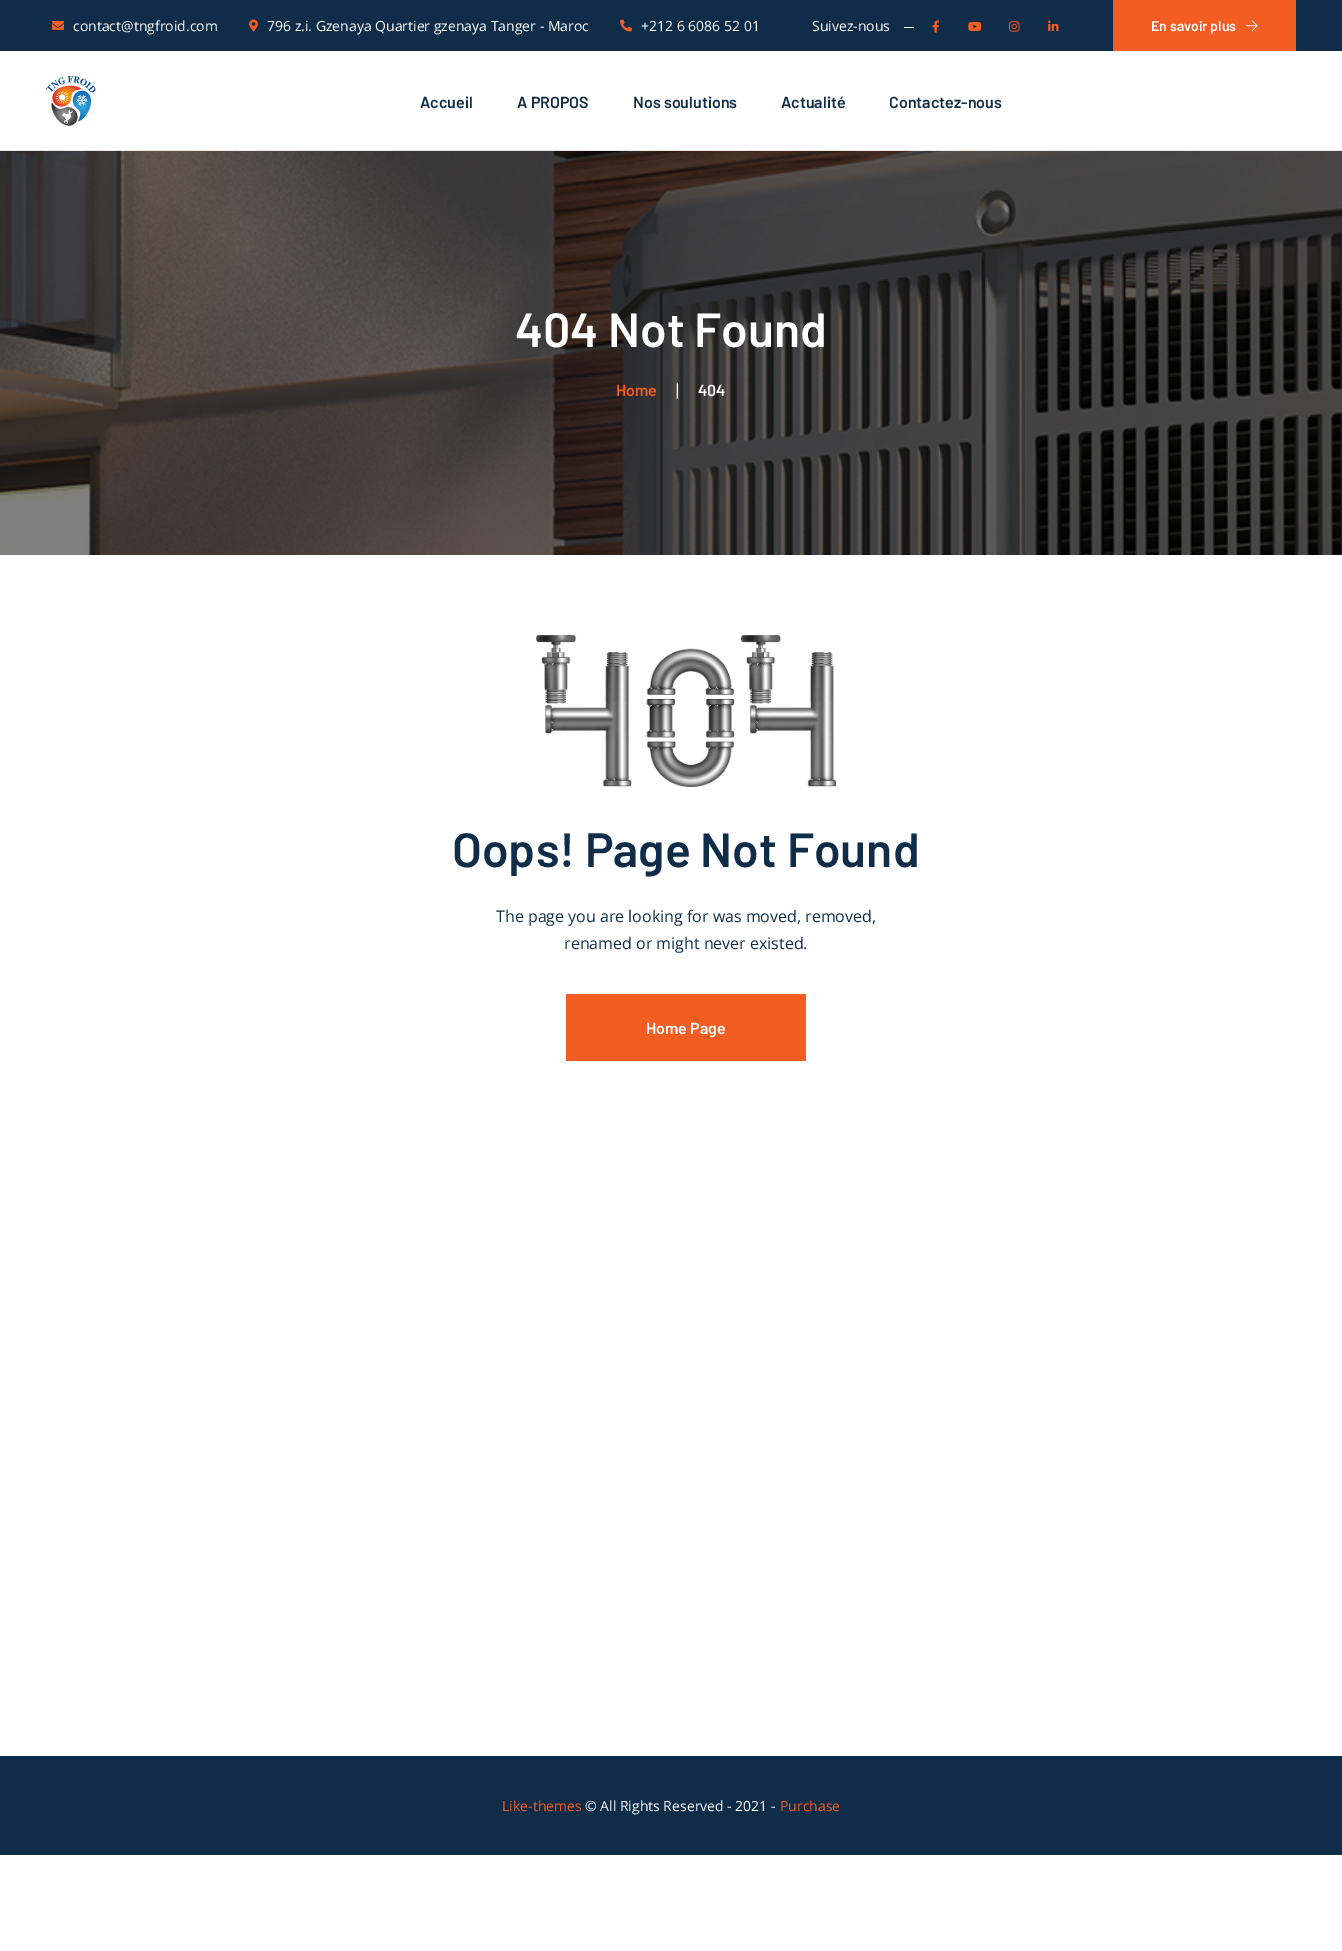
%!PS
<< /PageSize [1342 1951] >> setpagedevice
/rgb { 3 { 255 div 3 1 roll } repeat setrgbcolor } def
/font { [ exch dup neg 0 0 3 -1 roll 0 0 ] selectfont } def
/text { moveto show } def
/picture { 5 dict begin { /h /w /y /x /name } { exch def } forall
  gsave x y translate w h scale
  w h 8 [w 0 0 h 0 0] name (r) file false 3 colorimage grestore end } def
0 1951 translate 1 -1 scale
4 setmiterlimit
255 255 255 rgb
0 0 1342 1951 rectfill
15 44 73 rgb
0 0 1342 51 rectfill
(img_01.rgb) 52 21 12 9 picture
(img_02.rgb) 249 19 9 13 picture
(img_03.rgb) 620 19 12 13 picture
255 255 255 rgb
904 27 10 1 rectfill
(img_04.rgb) 932 20 7 13 picture
(img_05.rgb) 968 22 14 9 picture
(img_06.rgb) 1009 21 11 11 picture
(img_07.rgb) 1048 20 11 11 picture
243 93 34 rgb
1113 0 183 51 rectfill
(img_08.rgb) 1246 20 12 12 picture
(img_09.rgb) 46 76 50 50 picture
230 230 230 rgb
0 150 1342 1 rectfill
(img_10.rgb) 0 151 1342 404 picture
(img_11.rgb) 536 635 300 152 picture
243 93 34 rgb
566 994 240 67 rectfill
15 44 73 rgb
0 1756 1342 99 rectfill
/OpenSans-Regular 14 font
255 255 255 rgb
(contact@tngfroid.com) 73 31 text
(796 z.i. Gzenaya Quartier gzenaya Tanger - Maroc) 267 31 text
(+212 6 6086 52 01) 641 31 text
(Suivez-nous) 812 31 text
/Barlow-SemiBold 14 font
(En savoir plus) 1151 31 text
/Barlow-SemiBold 16 font
15 44 73 rgb
(Accueil) 420 108 text
(A PROPOS) 517 108 text
(Nos soulutions) 633 108 text
(Actualité) 781 108 text
(Contactez-nous) 889 108 text
/Barlow-SemiBold 48 font
255 255 255 rgb
(404 Not Found) 515 347 text
/Barlow-SemiBold 16 font
243 93 34 rgb
(Home) 616 396 text
/OpenSans-Regular 16 font
255 255 255 rgb
(|) 673 395 text
/Barlow-SemiBold 16 font
(404) 698 396 text
/Barlow-SemiBold 48 font
15 44 73 rgb
(Oops! Page Not Found) 452 867 text
/OpenSans-Regular 16 font
(The page you are looking for was moved, removed,) 496 922 text
(renamed or might never existed.) 564 949 text
/Barlow-SemiBold 16 font
255 255 255 rgb
(Home Page) 646 1034 text
/OpenSans-Regular 14 font
243 93 34 rgb
(Like-themes) 502 1811 text
255 255 255 rgb
(© All Rights Reserved - 2021 -) 585 1811 text
243 93 34 rgb
(Purchase) 780 1811 text
showpage
